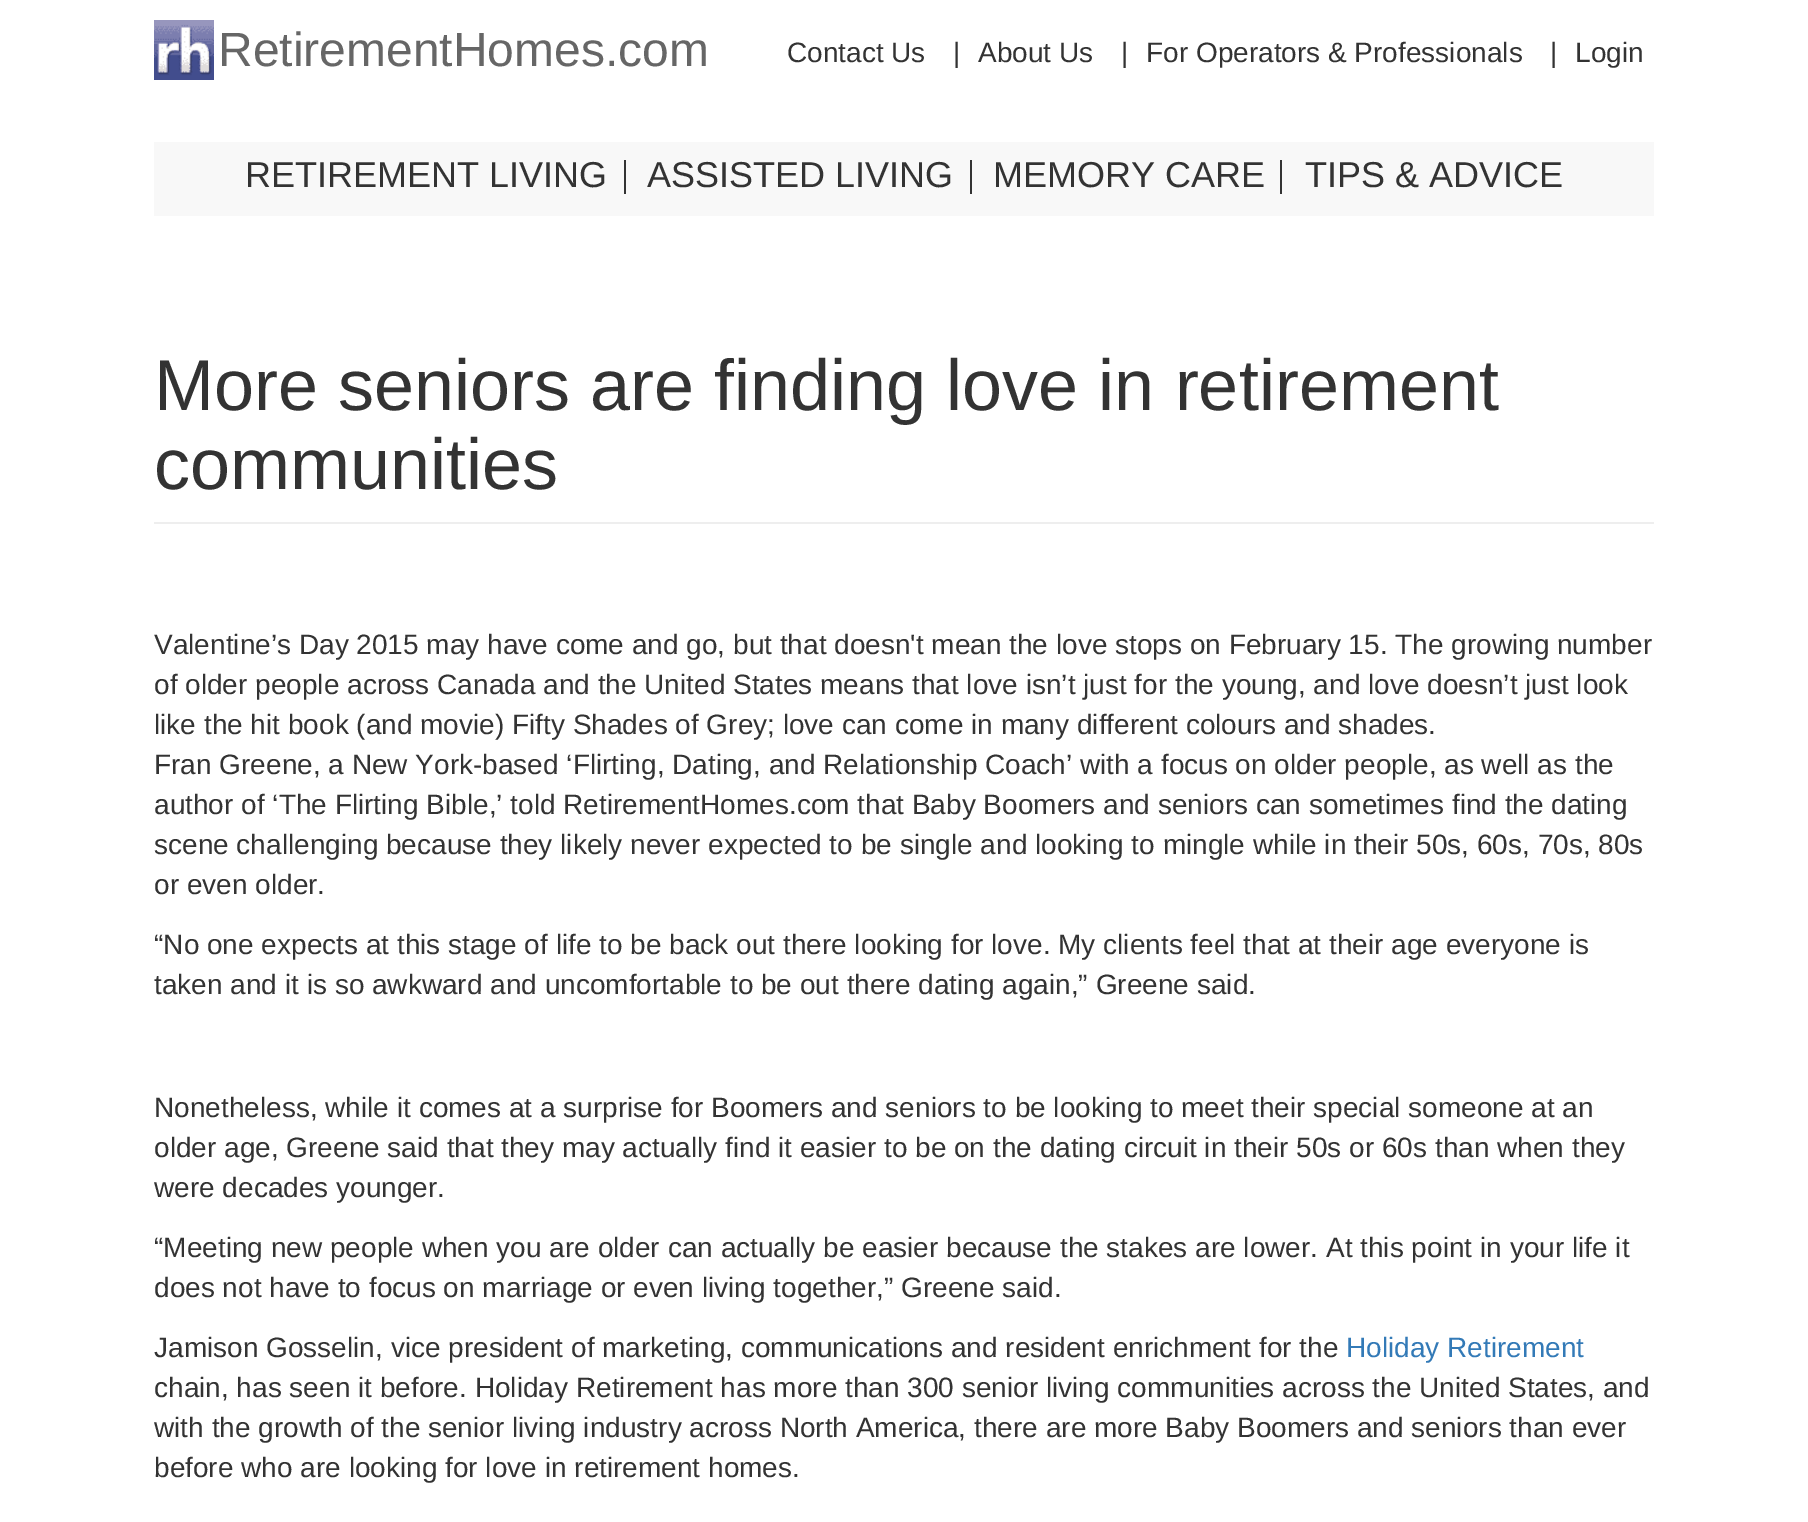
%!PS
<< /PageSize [1808 1522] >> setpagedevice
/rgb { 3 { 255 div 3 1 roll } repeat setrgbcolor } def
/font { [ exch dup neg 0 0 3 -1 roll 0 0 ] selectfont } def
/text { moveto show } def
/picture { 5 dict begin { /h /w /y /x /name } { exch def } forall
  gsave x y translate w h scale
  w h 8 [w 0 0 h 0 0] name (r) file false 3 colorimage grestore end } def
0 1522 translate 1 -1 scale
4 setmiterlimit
255 255 255 rgb
0 0 1808 1522 rectfill
(img_01.rgb) 154 20 60 60 picture
248 248 248 rgb
154 142 1500 74 rectfill
51 51 51 rgb
624 160 2 34 rectfill
970 160 2 34 rectfill
1280 160 2 34 rectfill
238 238 238 rgb
154 522 1500 2 rectfill
/LiberationSans-Regular 48 font
102 102 102 rgb
(RetirementHomes.com) 218 66 text
/LiberationSans-Regular 28 font
51 51 51 rgb
(Contact Us) 787 62 text
(|) 953 62 text
(About Us) 978 62 text
(|) 1121 62 text
(For Operators & Professionals) 1146 62 text
(|) 1550 62 text
(Login) 1575 62 text
/LiberationSans-Regular 36 font
(RETIREMENT LIVING) 245 187 text
(ASSISTED LIVING) 647 187 text
(MEMORY CARE) 993 187 text
(TIPS & ADVICE) 1305 187 text
/LiberationSans-Regular 72 font
(More seniors are finding love in retirement) 154 410 text
(communities) 154 489 text
/LiberationSans-Regular 28 font
(Valentine’s Day 2015 may have come and go, but that doesn't mean the love stops on February 15. The growing number) 154 654 text
(of older people across Canada and the United States means that love isn’t just for the young, and love doesn’t just look) 154 694 text
(like the hit book \(and movie\) Fifty Shades of Grey; love can come in many different colours and shades.) 154 734 text
(Fran Greene, a New York-based ‘Flirting, Dating, and Relationship Coach’ with a focus on older people, as well as the) 154 774 text
(author of ‘The Flirting Bible,’ told RetirementHomes.com that Baby Boomers and seniors can sometimes find the dating) 154 814 text
(scene challenging because they likely never expected to be single and looking to mingle while in their 50s, 60s, 70s, 80s) 154 854 text
(or even older.) 154 894 text
(“No one expects at this stage of life to be back out there looking for love. My clients feel that at their age everyone is) 154 954 text
(taken and it is so awkward and uncomfortable to be out there dating again,” Greene said.) 154 994 text
(Nonetheless, while it comes at a surprise for Boomers and seniors to be looking to meet their special someone at an) 154 1117 text
(older age, Greene said that they may actually find it easier to be on the dating circuit in their 50s or 60s than when they) 154 1157 text
(were decades younger.) 154 1197 text
(“Meeting new people when you are older can actually be easier because the stakes are lower. At this point in your life it) 154 1257 text
(does not have to focus on marriage or even living together,” Greene said.) 154 1297 text
(Jamison Gosselin, vice president of marketing, communications and resident enrichment for the) 154 1357 text
51 122 183 rgb
(Holiday Retirement) 1346 1357 text
51 51 51 rgb
(chain, has seen it before. Holiday Retirement has more than 300 senior living communities across the United States, and) 154 1397 text
(with the growth of the senior living industry across North America, there are more Baby Boomers and seniors than ever) 154 1437 text
(before who are looking for love in retirement homes.) 154 1477 text
showpage
